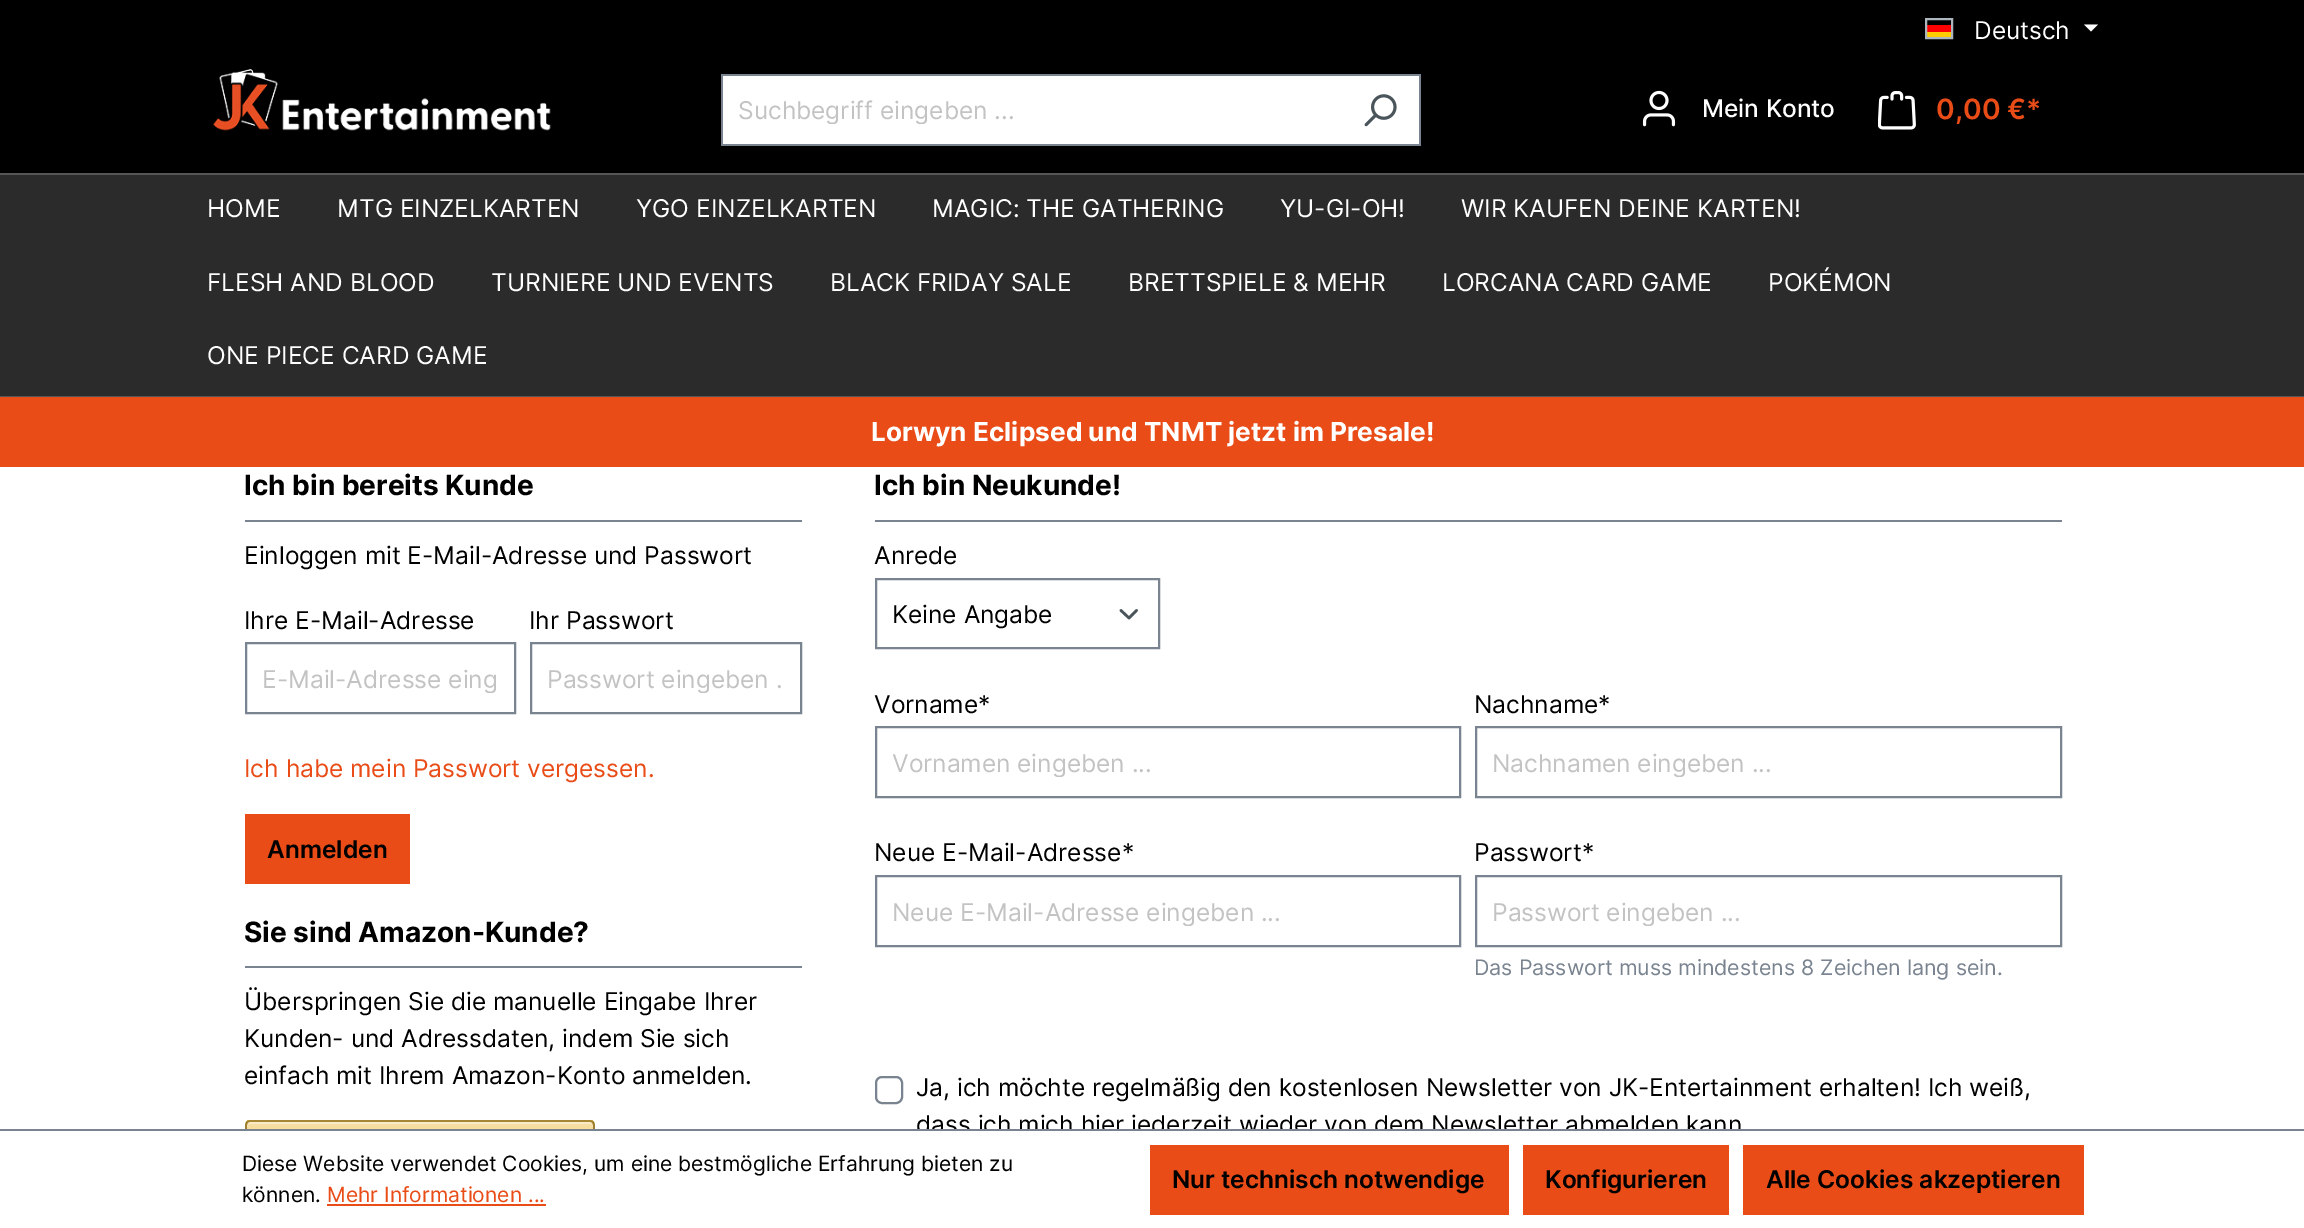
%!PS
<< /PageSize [2304 1228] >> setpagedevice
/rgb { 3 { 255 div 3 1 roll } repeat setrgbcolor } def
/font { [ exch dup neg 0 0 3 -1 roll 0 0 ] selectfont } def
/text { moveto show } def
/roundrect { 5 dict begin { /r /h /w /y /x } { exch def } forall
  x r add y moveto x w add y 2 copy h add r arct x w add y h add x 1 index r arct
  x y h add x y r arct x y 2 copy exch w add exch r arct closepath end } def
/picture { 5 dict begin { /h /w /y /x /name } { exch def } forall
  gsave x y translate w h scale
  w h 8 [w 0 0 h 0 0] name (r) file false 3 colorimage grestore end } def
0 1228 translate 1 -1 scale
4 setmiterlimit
255 255 255 rgb
0 0 2304 1228 rectfill
0 0 0 rgb
0 0 2304 173 rectfill
255 0 0 rgb
1927 25 24 7 rectfill
255 204 0 rgb
1927 32 24 5 rectfill
173 181 189 rgb
2 setlinewidth
1926 19 26 19 rectstroke
255 255 255 rgb
2084 24.5 moveto 14 0 rlineto -7 7 rlineto closepath fill
(img_01.rgb) 213 69 338 62 picture
723 76 696 68 rectfill
121 132 144 rgb
721 74 700 2 rectfill
721 144 620 2 rectfill
721 74 2 71 rectfill
1419 74 2 71 rectfill
1339 144 82 2 rectfill
(img_02.rgb) 1364 94 33 33 picture
(img_03.rgb) 1642 90 34 37 picture
(img_04.rgb) 1878 91 38 39 picture
43 43 43 rgb
0 175 2304 221 rectfill
86 86 86 rgb
0 173 2304 2 rectfill
0 396 2304 1 rectfill
233 76 23 rgb
0 397 2304 70 rectfill
121 132 144 rgb
245 520 557 2 rectfill
246 643 269 70 rectstroke
531 643 270 70 rectstroke
233 76 23 rgb
245 814 165 70 rectfill
121 132 144 rgb
245 966 557 2 rectfill
gsave
245 1120 350 84 5 roundrect clip newpath
gsave 245 1120 moveto 350 0 rlineto 0 2 rlineto -350 0 rlineto closepath clip newpath
<< /ShadingType 2 /ColorSpace /DeviceRGB /Coords [420 1041 420 1122] /Extend [true true] /Function << /FunctionType 2 /Domain [0 1] /C0 [0.969 0.875 0.647] /C1 [0.941 0.757 0.294] /N 1 >> >> shfill grestore
gsave 245 1122 moveto 350 0 rlineto 0 7 rlineto -350 0 rlineto closepath clip newpath
<< /ShadingType 2 /ColorSpace /DeviceRGB /Coords [420 1122 420 1202] /Extend [true true] /Function << /FunctionType 2 /Domain [0 1] /C0 [0.969 0.875 0.647] /C1 [0.941 0.757 0.294] /N 1 >> >> shfill grestore
grestore
250 235 200 rgb
250 1124 moveto 340 0 rlineto 2 0 3 1 3 3 rcurveto 0 -1 rlineto 0 -2 -2 -4 -4 -4 rcurveto -338 0 rlineto -2 0 -4 2 -4 4 rcurveto 0 1 rlineto 0 -2 1 -3 3 -3 rcurveto closepath fill
168 135 52 rgb
1.8 setlinewidth
247 1122 moveto 1 -0.5 2 -1 3 -1 rcurveto 340 0 rlineto 1 0 2 0.5 3 1 rcurveto stroke
156 126 49 rgb
593 1122 moveto 1 3 rlineto 0 74 rlineto -1 3 rlineto stroke
247 1202 moveto -1 -3 rlineto 0 -74 rlineto 1 -3 rlineto stroke
121 132 144 rgb
875 520 1187 2 rectfill
74 84 91 rgb
2.6 setlinewidth
1 setlinecap
1 setlinejoin
1121 610.5 moveto 8 7.5 rlineto 7.5 -7.5 rlineto stroke
121 132 144 rgb
2 setlinewidth
0 setlinecap
0 setlinejoin
876 579 283 69 rectstroke
876 727 584 70 rectstroke
1476 727 585 70 rectstroke
876 876 584 70 rectstroke
1476 876 585 70 rectstroke
876 1077 26 26 6 roundrect stroke
233 76 23 rgb
327 1204 219 2 rectfill
1743 1145 341 70 rectfill
/Inter-Regular 24.5 font
255 255 255 rgb
(Deutsch) 1974 39 text
gsave
739 95 586 29 rectclip
195 195 195 rgb
(Suchbegriff eingeben ...) 738 119 text
grestore
/Inter-Medium 24.5 font
(Mein Konto) 1702 117 text
/Inter-SemiBold 28 font
233 76 23 rgb
(0,00 €*) 1936 119 text
/Inter-Regular 24.5 font
255 255 255 rgb
(HOME) 207 217 text
(MTG EINZELKARTEN) 337 217 text
(YGO EINZELKARTEN) 636 217 text
(MAGIC: THE GATHERING) 932 217 text
(YU-GI-OH!) 1280 217 text
(WIR KAUFEN DEINE KARTEN!) 1461 217 text
(FLESH AND BLOOD) 207 291 text
(TURNIERE UND EVENTS) 491 291 text
(BLACK FRIDAY SALE) 830 291 text
(BRETTSPIELE & MEHR) 1128 291 text
(LORCANA CARD GAME) 1442 291 text
(POKÉMON) 1768 291 text
(ONE PIECE CARD GAME) 207 364 text
/Inter-Bold 26.25 font
(Lorwyn Eclipsed und TNMT jetzt im Presale!) 871 441 text
/Inter-Bold 28 font
0 0 0 rgb
(Ich bin bereits Kunde) 244 495 text
/Inter-Regular 24.5 font
(Einloggen mit E-Mail-Adresse und Passwort) 244 564 text
(Ihre E-Mail-Adresse) 244 629 text
gsave
263 663 236 30 rectclip
195 195 195 rgb
(E-Mail-Adresse eing) 262 688 text
grestore
(Ihr Passwort) 529 629 text
gsave
548 663 236 30 rectclip
195 195 195 rgb
(Passwort eingeben .) 547 688 text
grestore
233 76 23 rgb
(Ich habe mein Passwort vergessen.) 244 777 text
/Inter-SemiBold 24.5 font
0 0 0 rgb
(Anmelden) 267 858 text
/Inter-Bold 28 font
(Sie sind Amazon-Kunde?) 244 942 text
/Inter-Regular 24.5 font
(Überspringen Sie die manuelle Eingabe Ihrer) 244 1010 text
(Kunden- und Adressdaten, indem Sie sich) 244 1047 text
(einfach mit Ihrem Amazon-Konto anmelden.) 244 1084 text
/Inter-Bold 28 font
(Ich bin Neukunde!) 874 495 text
/Inter-Regular 24.5 font
(Anrede) 874 564 text
(Keine Angabe) 892 623 text
(Vorname*) 874 713 text
gsave
893 747 551 30 rectclip
195 195 195 rgb
(Vornamen eingeben ...) 892 772 text
grestore
(Nachname*) 1474 713 text
gsave
1493 747 551 30 rectclip
195 195 195 rgb
(Nachnamen eingeben ...) 1492 772 text
grestore
(Neue E-Mail-Adresse*) 874 861 text
gsave
893 896 551 30 rectclip
195 195 195 rgb
(Neue E-Mail-Adresse eingeben ...) 892 921 text
grestore
(Passwort*) 1474 861 text
gsave
1493 896 551 30 rectclip
195 195 195 rgb
(Passwort eingeben ...) 1492 921 text
grestore
/Inter-Regular 21.4 font
121 132 144 rgb
(Das Passwort muss mindestens 8 Zeichen lang sein.) 1474 975 text
/Inter-Regular 24.5 font
0 0 0 rgb
(Ja, ich möchte regelmäßig den kostenlosen Newsletter von JK-Entertainment erhalten! Ich weiß,) 916 1096 text
(dass ich mich hier jederzeit wieder von dem Newsletter abmelden kann) 916 1133 text
255 255 255 rgb
245 1131 1496 72 rectfill
121 132 144 rgb
0 1129 2304 2 rectfill
/Inter-Regular 21 font
0 0 0 rgb
(Diese Website verwendet Cookies, um eine bestmögliche Erfahrung bieten zu) 242 1171 text
(können.) 242 1202 text
233 76 23 rgb
(Mehr Informationen ...) 327 1202 text
1150 1145 359 70 rectfill
/Inter-SemiBold 24.5 font
0 0 0 rgb
(Nur technisch notwendige) 1172 1188 text
233 76 23 rgb
1523 1145 206 70 rectfill
0 0 0 rgb
(Konfigurieren) 1545 1188 text
(Alle Cookies akzeptieren) 1766 1188 text
showpage
